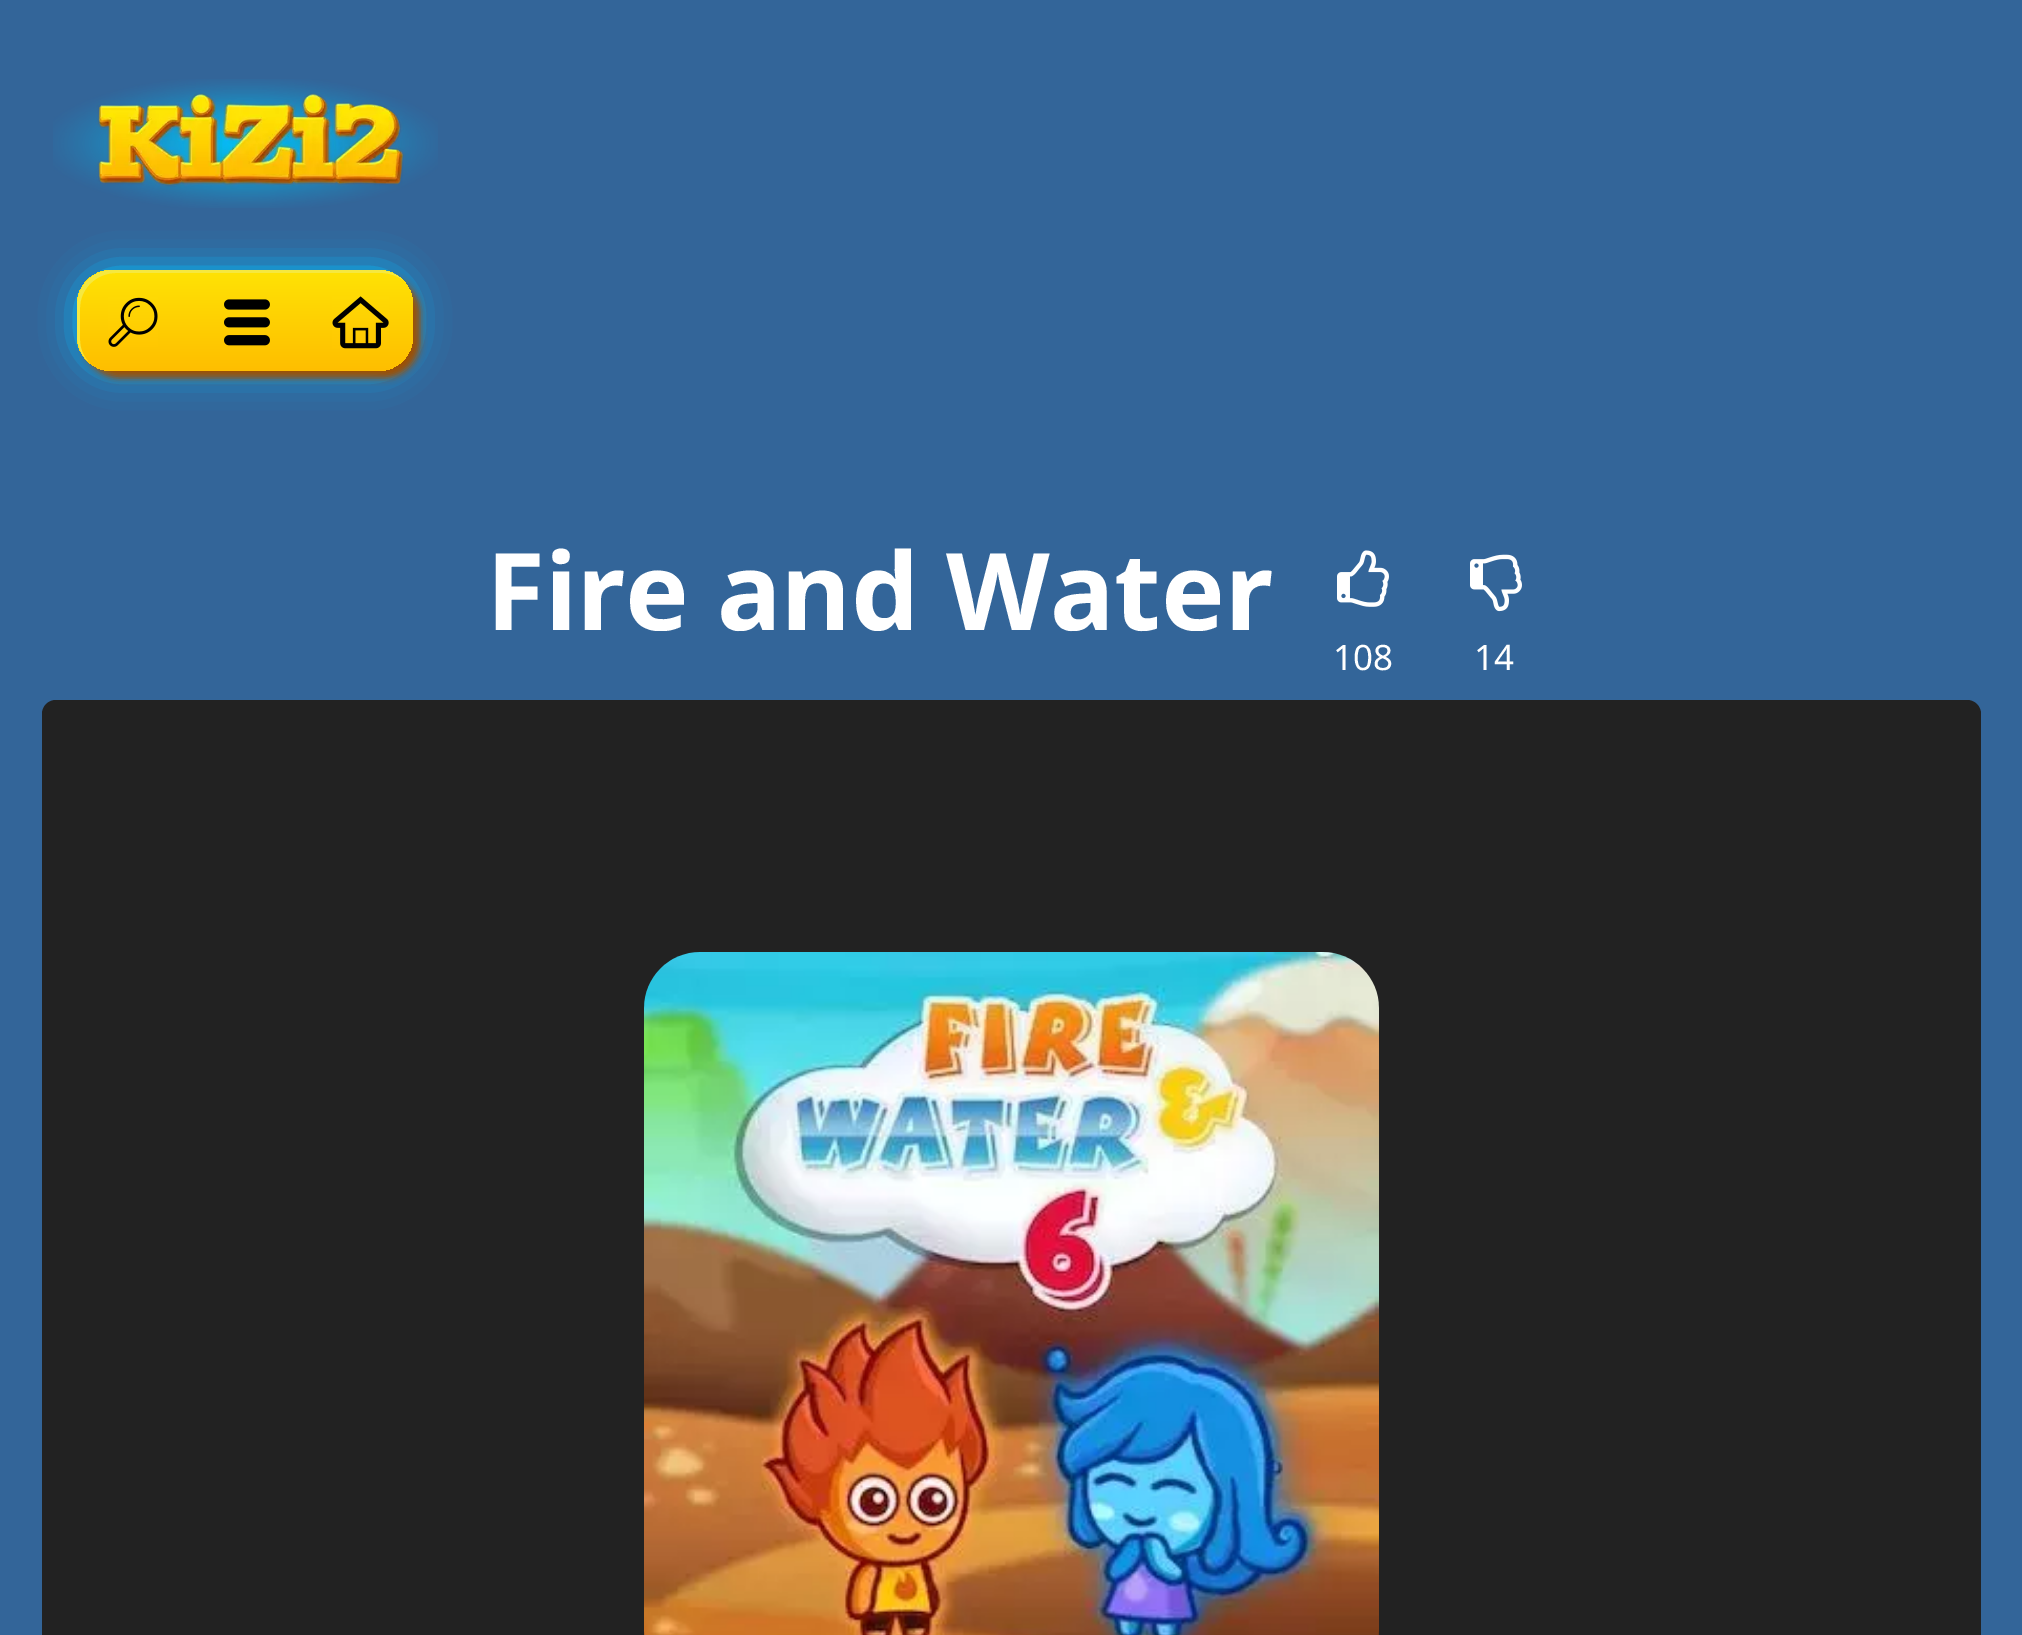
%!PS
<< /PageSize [2022 1635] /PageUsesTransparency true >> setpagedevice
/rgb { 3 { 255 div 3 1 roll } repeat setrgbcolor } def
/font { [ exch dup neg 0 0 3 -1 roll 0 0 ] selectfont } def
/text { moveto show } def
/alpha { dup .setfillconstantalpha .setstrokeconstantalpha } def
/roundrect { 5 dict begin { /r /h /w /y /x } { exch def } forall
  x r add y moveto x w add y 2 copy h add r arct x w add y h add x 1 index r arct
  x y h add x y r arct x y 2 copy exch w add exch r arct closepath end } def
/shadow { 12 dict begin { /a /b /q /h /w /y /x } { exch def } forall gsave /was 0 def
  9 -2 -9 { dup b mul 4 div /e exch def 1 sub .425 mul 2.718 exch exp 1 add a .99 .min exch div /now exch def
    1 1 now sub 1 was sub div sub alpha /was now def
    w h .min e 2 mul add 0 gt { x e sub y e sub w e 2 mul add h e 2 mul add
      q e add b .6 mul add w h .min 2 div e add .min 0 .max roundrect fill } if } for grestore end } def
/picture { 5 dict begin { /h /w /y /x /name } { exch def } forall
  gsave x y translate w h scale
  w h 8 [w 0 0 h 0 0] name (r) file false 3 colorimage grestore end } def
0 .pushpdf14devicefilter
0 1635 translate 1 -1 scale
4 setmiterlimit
51 101 153 rgb
0 0 2022 1635 rectfill
(img_01.rgb) 53 79 385 129 picture
0 193 255 rgb
77 270 336 101 35 17.5 1 shadow
159 78 0 rgb
84 277 336 101 35 3.5 1 shadow
gsave 77 270 336 101 35 roundrect clip newpath
<< /ShadingType 2 /ColorSpace /DeviceRGB /Coords [245 270 245 371] /Extend [true true] /Function << /FunctionType 2 /Domain [0 1] /C0 [0.996 0.89 0.02] /C1 [1 0.745 0] /N 1 >> >> shfill grestore
245 232 64 rgb
116 273 moveto 266 0 rlineto 8 0 15 3 21 7 rcurveto -6 -6 -15 -10 -25 -10 rcurveto -266 0 rlineto -19 0 -35 16 -35 35 rcurveto 0 31 rlineto 0 10 4 19 11 25 rcurveto -5 -5 -8 -13 -8 -21 rcurveto 0 -32 rlineto 0 -19 16 -35 36 -35 rcurveto closepath fill
(img_02.rgb) 108 297 50 50 picture
(img_03.rgb) 224 299 46 47 picture
(img_04.rgb) 332 296 57 53 picture
(img_05.rgb) 1337 550 52 57 picture
(img_06.rgb) 1470 554 52 58 picture
34 34 34 rgb
42 700 1939 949 14 roundrect fill
(img_07.rgb) 644 952 735 683 picture
/NotoSans-Bold 107.25 font
255 255 255 rgb
(Fire and Water) 486 630 text
/NotoSans-Regular 35 font
(108) 1333 670 text
(14) 1474 670 text
.poppdf14devicefilter showpage
